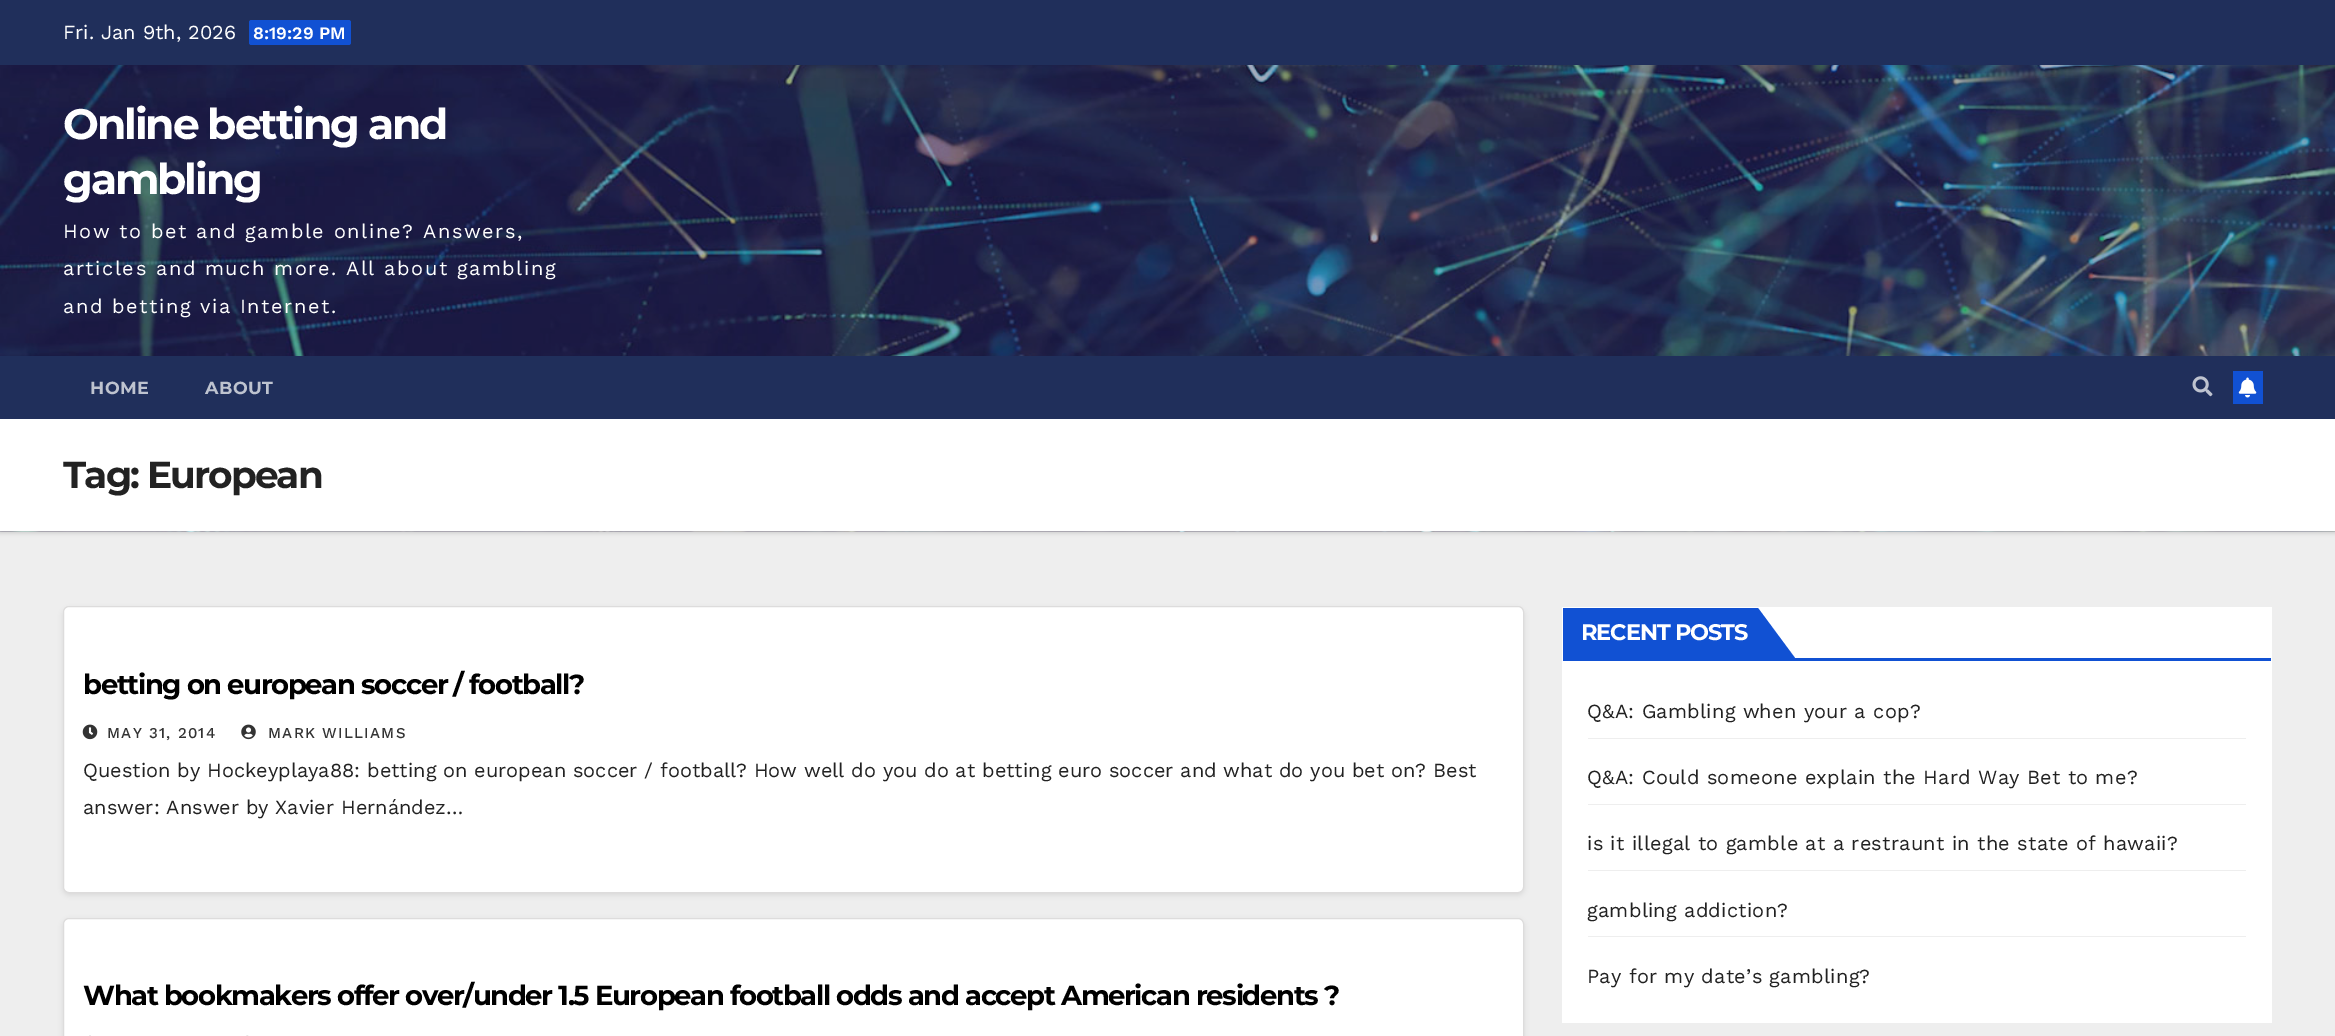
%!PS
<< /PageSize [2335 1036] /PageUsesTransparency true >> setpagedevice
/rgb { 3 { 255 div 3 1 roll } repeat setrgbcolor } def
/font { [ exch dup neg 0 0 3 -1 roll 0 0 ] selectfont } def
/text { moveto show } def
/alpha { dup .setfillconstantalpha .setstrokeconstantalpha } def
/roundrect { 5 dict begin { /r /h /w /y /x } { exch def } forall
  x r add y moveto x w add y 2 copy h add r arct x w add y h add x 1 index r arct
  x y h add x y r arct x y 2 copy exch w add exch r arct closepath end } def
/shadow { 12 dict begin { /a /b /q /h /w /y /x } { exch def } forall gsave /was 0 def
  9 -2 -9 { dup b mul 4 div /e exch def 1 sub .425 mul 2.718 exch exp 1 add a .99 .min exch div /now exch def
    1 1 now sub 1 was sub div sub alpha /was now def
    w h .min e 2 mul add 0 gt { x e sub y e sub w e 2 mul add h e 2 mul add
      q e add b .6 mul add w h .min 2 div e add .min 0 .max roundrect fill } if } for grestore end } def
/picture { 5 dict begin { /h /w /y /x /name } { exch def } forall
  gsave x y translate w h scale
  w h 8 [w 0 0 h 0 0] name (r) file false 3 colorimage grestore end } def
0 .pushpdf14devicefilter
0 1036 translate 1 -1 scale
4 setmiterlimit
238 238 238 rgb
0 0 2335 1036 rectfill
32 47 91 rgb
0 0 2335 65 rectfill
17 81 211 rgb
249 20 102 25 2.5 roundrect fill
(img_01.rgb) 0 65 2335 291 picture
0 0 0 rgb
0 420 2335 113 0 2 0.15 shadow
32 47 91 rgb
0 356 2335 63 rectfill
(img_02.rgb) 2192 376 21 21 picture
17 81 211 rgb
2233 371 30 33 rectfill
(img_03.rgb) 2238 377 19 21 picture
(img_04.rgb) 0 531 2335 1 picture
255 255 255 rgb
0 419 2335 112 rectfill
0 0 0 rgb
63 609 1461 286 6 2.5 0.08 shadow
255 255 255 rgb
63.5 606.5 1460 286 5.5 roundrect gsave fill grestore
221 220 220 rgb
stroke
(img_05.rgb) 82 724 16 16 picture
(img_06.rgb) 241 724 15 16 picture
0 0 0 rgb
63 920 1461 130 6 2.5 0.08 shadow
255 255 255 rgb
63.5 918.5 1460 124 5.5 roundrect gsave fill grestore
221 220 220 rgb
stroke
235 235 235 rgb
89 1035 2 1 rectfill
(img_07.rgb) 246 1035 3 1 picture
255 255 255 rgb
1562 607 710 416 rectfill
17 81 211 rgb
1563 658 708 3 rectfill
1563 608 195 50 rectfill
1758 658 moveto 0 -50 rlineto 37 50 rlineto closepath fill
238 238 238 rgb
1588 738 658 1 rectfill
1588 804 658 1 rectfill
1588 870 658 1 rectfill
1588 936 658 1 rectfill
/WorkSans-Regular 20 font
255 255 255 rgb
(Fri. Jan 9th, 2026) 63 39 text
/WorkSans-SemiBold 17.5 font
(8:19:29 PM) 253 39 text
/Montserrat-Bold 42.5 font
63 139 moveto -2.1 0 (Online betting and) ashow
63 194 moveto -2.1 0 (gambling) ashow
/WorkSans-Regular 20 font
63 238 moveto 1.5 0 (How to bet and gamble online? Answers,) ashow
63 275 moveto 1.5 0 (articles and much more. All about gambling) ashow
63 313 moveto 1.5 0 (and betting via Internet.) ashow
/Montserrat-Bold 17.5 font
190 195 207 rgb
90 394 moveto 0.5 0 (HOME) ashow
205 394 moveto 0.5 0 (ABOUT) ashow
/Montserrat-Bold 37.5 font
34 34 34 rgb
63 488 moveto -1.9 0 (Tag: European) ashow
/Montserrat-Bold 27.5 font
0 0 0 rgb
83 694 moveto -1.38 0 (betting on european soccer / football?) ashow
/WorkSans-Medium 15 font
51 51 51 rgb
107 738 moveto 1.25 0 (MAY 31, 2014) ashow
268 738 moveto 1.25 0 (MARK WILLIAMS) ashow
/WorkSans-Regular 20 font
34 34 34 rgb
(Question by Hockeyplaya88: betting on european soccer / football? How well do you do at betting euro soccer and what do you bet on? Best) 83 777 text
(answer: Answer by Xavier Hernández…) 83 814 text
/Montserrat-Bold 27.5 font
0 0 0 rgb
83 1005 moveto -1.38 0 (What bookmakers offer over/under 1.5 European football odds and accept American residents ?) ashow
/Montserrat-Bold 22.5 font
255 255 255 rgb
1581 640 moveto -1.1 0 (RECENT POSTS) ashow
/WorkSans-Regular 20 font
34 34 34 rgb
1587 718 moveto 0.25 0 (Q&A: Gambling when your a cop?) ashow
1587 784 moveto 0.25 0 (Q&A: Could someone explain the Hard Way Bet to me?) ashow
1587 850 moveto 0.25 0 (is it illegal to gamble at a restraunt in the state of hawaii?) ashow
1587 917 moveto 0.25 0 (gambling addiction?) ashow
1587 983 moveto 0.25 0 (Pay for my date’s gambling?) ashow
.poppdf14devicefilter showpage
